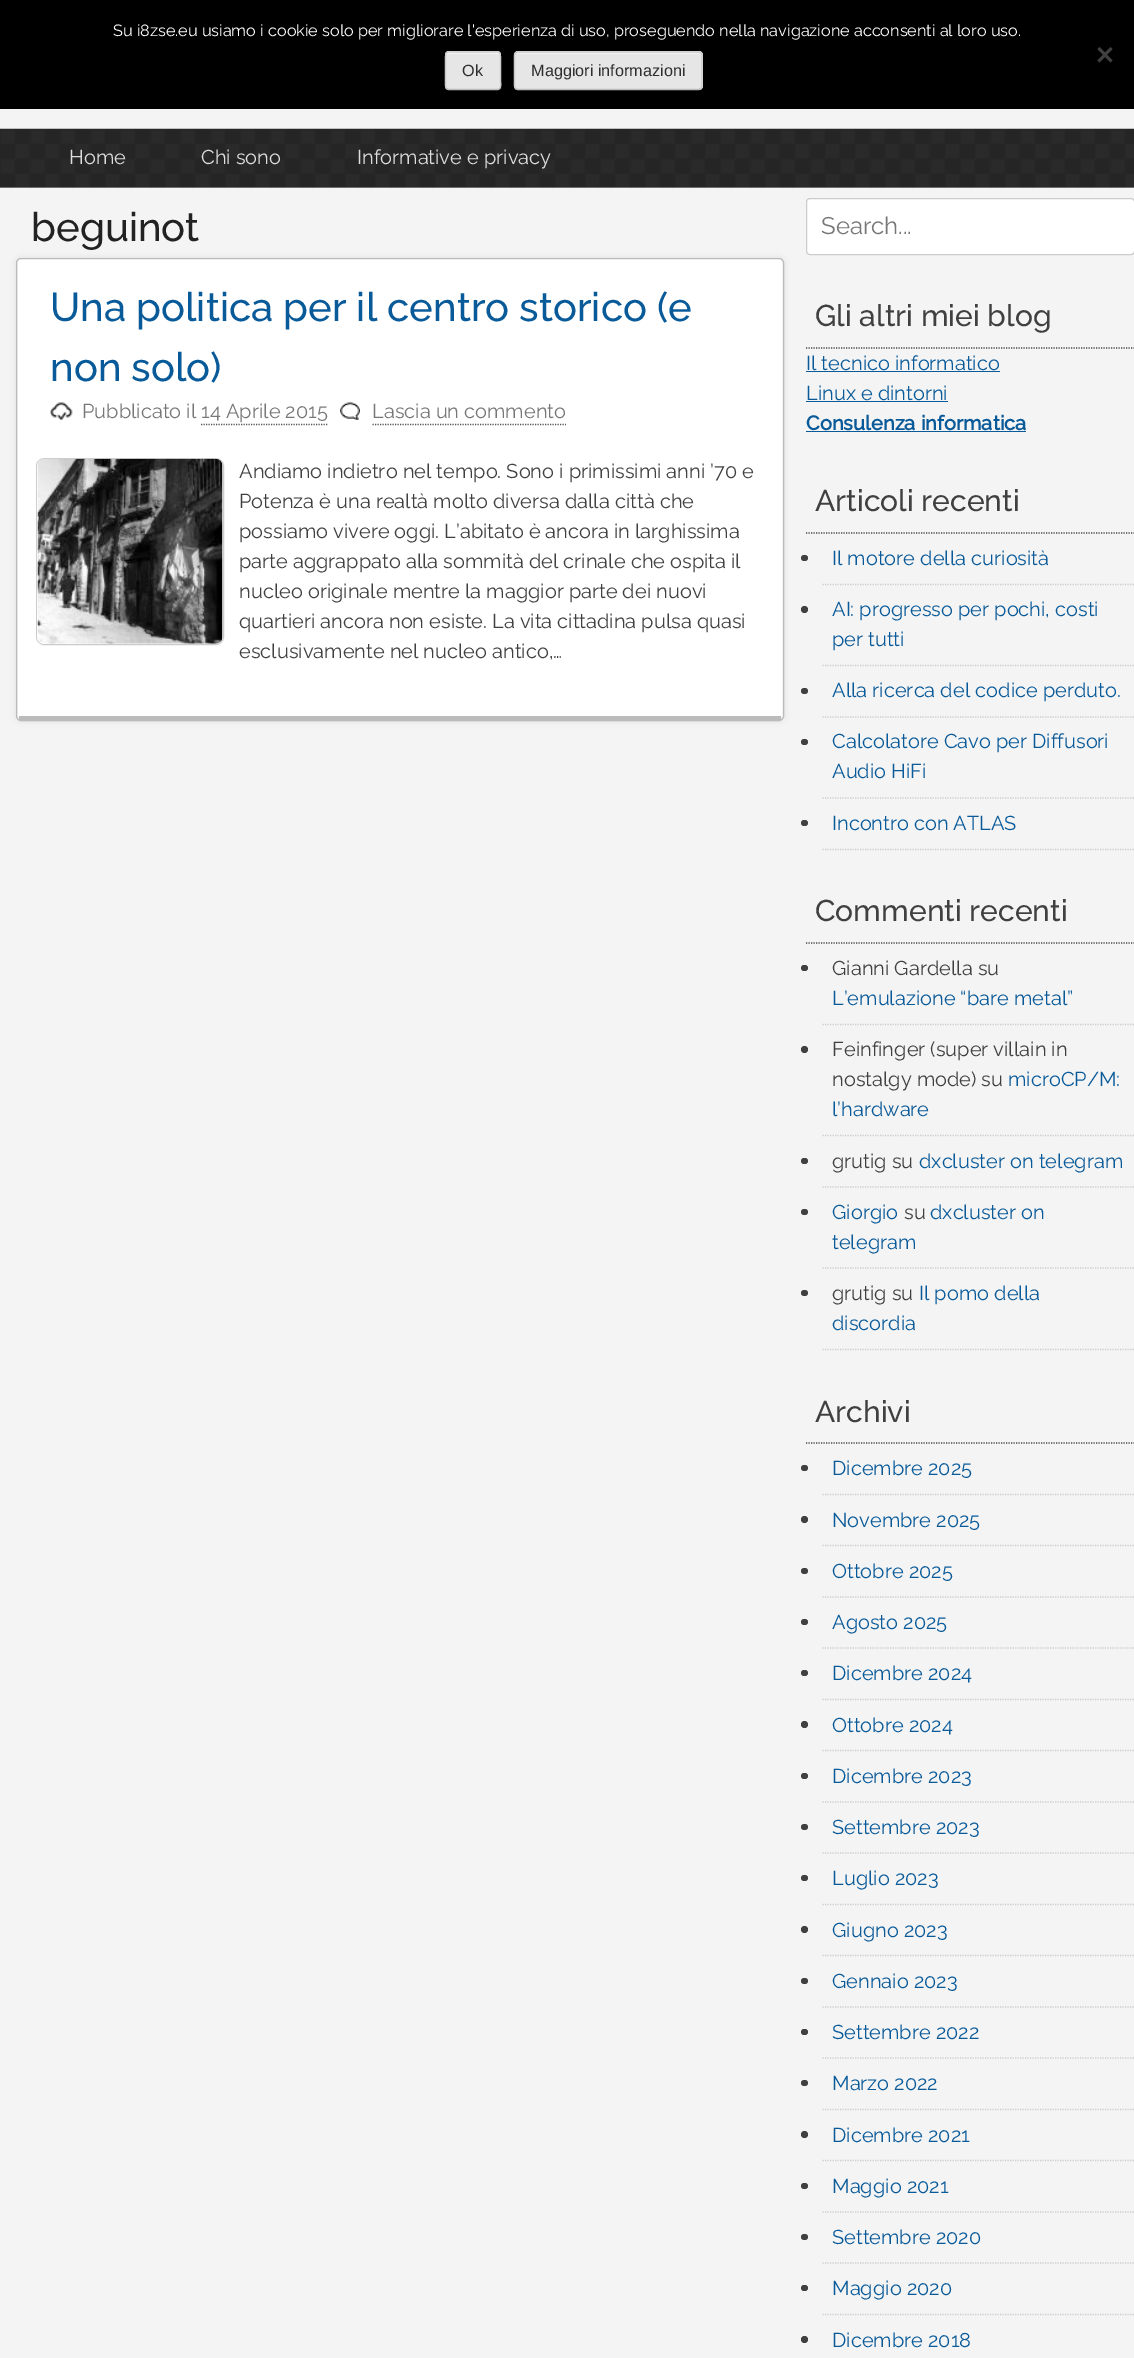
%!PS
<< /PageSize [1134 2358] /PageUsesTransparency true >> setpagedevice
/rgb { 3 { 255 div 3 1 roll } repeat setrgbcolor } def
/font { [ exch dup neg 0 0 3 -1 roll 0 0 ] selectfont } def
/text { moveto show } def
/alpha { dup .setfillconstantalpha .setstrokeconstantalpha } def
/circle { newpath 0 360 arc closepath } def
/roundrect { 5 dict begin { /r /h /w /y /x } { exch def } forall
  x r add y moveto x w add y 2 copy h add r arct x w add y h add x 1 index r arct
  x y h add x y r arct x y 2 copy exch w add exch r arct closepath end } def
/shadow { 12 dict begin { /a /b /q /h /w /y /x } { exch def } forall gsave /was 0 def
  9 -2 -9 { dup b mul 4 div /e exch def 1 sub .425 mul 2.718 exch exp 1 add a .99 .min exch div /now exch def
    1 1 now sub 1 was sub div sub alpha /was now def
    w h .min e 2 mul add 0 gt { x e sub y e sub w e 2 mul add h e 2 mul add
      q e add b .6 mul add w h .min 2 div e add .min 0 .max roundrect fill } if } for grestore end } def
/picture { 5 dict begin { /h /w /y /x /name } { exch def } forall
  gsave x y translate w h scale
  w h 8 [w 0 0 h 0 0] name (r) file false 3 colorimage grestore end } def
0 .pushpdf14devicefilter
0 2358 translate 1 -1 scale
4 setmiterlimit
244 244 245 rgb
0 0 1134 2358 rectfill
0 0 0 rgb
0 0 1134 109 rectfill
64 64 64 rgb
1110.5 47 moveto 2 2 rlineto -13 13.5 rlineto -2 -2 rlineto closepath fill
1097.5 49 moveto 2 -2 rlineto 13 13.5 rlineto -2 2 rlineto closepath fill
230 230 230 rgb
445 51 56 39 4 roundrect fill
243 243 243 rgb
449 54 moveto 49 0 rlineto 1 0 2 1 2 2 rcurveto 0 -5 -8 -3 -11 -3 rcurveto -32 0 rlineto -3 0 -11 -2 -11 3 rcurveto 0 -1 1 -2 3 -2 rcurveto closepath fill
187 187 187 rgb
1.2 setlinewidth
499.5 88.5 moveto -1.5 1 rlineto -49.5 0 rlineto -2 -1 rlineto stroke
204 204 204 rgb
446.5 88.5 moveto -1.5 -2 -1 -6 -1 -7.5 rcurveto 0 -21 rlineto 0 -10 0.5 -8 11.5 -8 rcurveto 32.5 0 rlineto 10.5 0 11 -2 11 8 rcurveto 0 21 rlineto 0 1.5 1 5.5 -1 7.5 rcurveto stroke
230 230 230 rgb
514 51 189 39 4 roundrect fill
243 243 243 rgb
518 54 moveto 181 0 rlineto 1 0 2 1 2 2 rcurveto 0 -2 -1 -3 -3 -3 rcurveto -180 0 rlineto -2 1 rlineto -1 2 rlineto 0 -1 1 -2 3 -2 rcurveto closepath fill
187 187 187 rgb
701 88.5 moveto -2 1 rlineto -181.5 0 rlineto -2 -1 rlineto stroke
204 204 204 rgb
515.5 88.5 moveto -1 -2.5 rlineto 0 -31 rlineto 1 -2 rlineto 2 -1 rlineto 181.5 0 rlineto 2 1 rlineto 1 2 rlineto 0 31 rlineto -1 2.5 rlineto stroke
183 183 183 rgb
0 187 1134 1 rectfill
(img_01.rgb) 0 128 1134 60 picture
gsave
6 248 moveto 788 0 rlineto 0 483 rlineto -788 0 rlineto closepath 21 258 moveto 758 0 rlineto 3 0 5 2 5 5 rcurveto 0 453 rlineto 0 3 -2 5 -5 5 rcurveto -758 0 rlineto -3 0 -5 -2 -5 -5 rcurveto 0 -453 rlineto 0 -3 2 -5 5 -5 rcurveto closepath eoclip newpath
221 221 221 rgb
16 258 768 463 5 3 1 shadow
grestore
255 255 255 rgb
21 259 moveto 758 0 rlineto 2 0 3 1 3 3 rcurveto 0 454 rlineto -764 0 rlineto 0 -454 rlineto 0 -2 1 -3 3 -3 rcurveto closepath fill
187 187 187 rgb
1 setlinewidth
16.5 258.5 767 462 4.5 roundrect stroke
19 716 762 4 rectfill
(img_02.rgb) 50 402 23 18 picture
85 85 85 rgb
1.2 setlinewidth
[1.25 1.25] 0 setdash
201 424.5 moveto 126.5 0 rlineto stroke
(img_03.rgb) 340 402 20 18 picture
372.5 424.5 moveto 193.5 0 rlineto stroke
204 204 204 rgb
1 setlinewidth
[] 0 setdash
36.5 458.5 187 186 7.5 roundrect stroke
(img_04.rgb) 37 458 186 186 picture
255 255 255 rgb
806.5 198.5 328 56 3.5 roundrect gsave fill grestore
204 204 204 rgb
stroke
68 68 68 rgb
1.2 setlinewidth
[1.25 1.25] 0 setdash
806 348 moveto 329 0 rlineto stroke
9 90 153 rgb
806 371 194 1 rectfill
806 401 142 1 rectfill
806 431 220 1 rectfill
68 68 68 rgb
806 533 moveto 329 0 rlineto stroke
204 204 204 rgb
822.5 584.5 moveto 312.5 0 rlineto stroke
64 64 64 rgb
801 555 7 6 3 roundrect fill
204 204 204 rgb
822.5 665.5 moveto 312.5 0 rlineto stroke
64 64 64 rgb
804.5 609.5 3.5 circle fill
204 204 204 rgb
822.5 717 moveto 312.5 0 rlineto stroke
64 64 64 rgb
801 688 7 6 3 roundrect fill
204 204 204 rgb
822.5 798 moveto 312.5 0 rlineto stroke
64 64 64 rgb
801 739 7 6 3 roundrect fill
204 204 204 rgb
822.5 849.5 moveto 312.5 0 rlineto stroke
64 64 64 rgb
801 820 7 6 3 roundrect fill
68 68 68 rgb
806 943 moveto 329 0 rlineto stroke
204 204 204 rgb
822.5 1024.5 moveto 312.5 0 rlineto stroke
64 64 64 rgb
801 965 7 6 3 roundrect fill
204 204 204 rgb
822.5 1135.5 moveto 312.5 0 rlineto stroke
64 64 64 rgb
804.5 1049.5 3.5 circle fill
204 204 204 rgb
822.5 1187 moveto 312.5 0 rlineto stroke
64 64 64 rgb
801 1158 7 6 3 roundrect fill
204 204 204 rgb
822.5 1268 moveto 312.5 0 rlineto stroke
64 64 64 rgb
801 1209 7 6 3 roundrect fill
204 204 204 rgb
822.5 1349.5 moveto 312.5 0 rlineto stroke
64 64 64 rgb
801 1290 7 6 3 roundrect fill
68 68 68 rgb
806 1443 moveto 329 0 rlineto stroke
204 204 204 rgb
822.5 1494.5 moveto 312.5 0 rlineto stroke
64 64 64 rgb
801 1465 7 6 3 roundrect fill
204 204 204 rgb
822.5 1545.5 moveto 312.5 0 rlineto stroke
64 64 64 rgb
804.5 1519.5 3.5 circle fill
204 204 204 rgb
822.5 1597 moveto 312.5 0 rlineto stroke
64 64 64 rgb
801 1568 7 6 3 roundrect fill
204 204 204 rgb
822.5 1648 moveto 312.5 0 rlineto stroke
64 64 64 rgb
801 1619 7 6 3 roundrect fill
204 204 204 rgb
822.5 1699.5 moveto 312.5 0 rlineto stroke
64 64 64 rgb
801 1670 7 6 3 roundrect fill
204 204 204 rgb
822.5 1750.5 moveto 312.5 0 rlineto stroke
64 64 64 rgb
804.5 1724.5 3.5 circle fill
204 204 204 rgb
822.5 1802 moveto 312.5 0 rlineto stroke
64 64 64 rgb
801 1773 7 6 3 roundrect fill
204 204 204 rgb
822.5 1853 moveto 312.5 0 rlineto stroke
64 64 64 rgb
801 1824 7 6 3 roundrect fill
204 204 204 rgb
822.5 1904.5 moveto 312.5 0 rlineto stroke
64 64 64 rgb
801 1875 7 6 3 roundrect fill
204 204 204 rgb
822.5 1955.5 moveto 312.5 0 rlineto stroke
64 64 64 rgb
804.5 1929.5 3.5 circle fill
204 204 204 rgb
822.5 2007 moveto 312.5 0 rlineto stroke
64 64 64 rgb
801 1978 7 6 3 roundrect fill
204 204 204 rgb
822.5 2058 moveto 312.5 0 rlineto stroke
64 64 64 rgb
801 2029 7 6 3 roundrect fill
204 204 204 rgb
822.5 2109.5 moveto 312.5 0 rlineto stroke
64 64 64 rgb
801 2080 7 6 3 roundrect fill
204 204 204 rgb
822.5 2160.5 moveto 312.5 0 rlineto stroke
64 64 64 rgb
804.5 2134.5 3.5 circle fill
204 204 204 rgb
822.5 2212 moveto 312.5 0 rlineto stroke
64 64 64 rgb
801 2183 7 6 3 roundrect fill
204 204 204 rgb
822.5 2263 moveto 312.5 0 rlineto stroke
64 64 64 rgb
801 2234 7 6 3 roundrect fill
204 204 204 rgb
822.5 2314.5 moveto 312.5 0 rlineto stroke
64 64 64 rgb
801 2285 7 6 3 roundrect fill
804.5 2339.5 3.5 circle fill
/Raleway-Regular 16.25 font
255 255 255 rgb
(Su i8zse.eu usiamo i cookie solo per migliorare l'esperienza di uso, proseguendo nella navigazione acconsenti al loro uso.) 113 36 text
/LiberationSans-Regular 16.25 font
46 46 46 rgb
(Ok) 462 76 text
(Maggiori informazioni) 531 76 text
/Raleway-Regular 20 font
221 221 221 rgb
(Home) 69 164 text
(Chi sono) 201 164 text
(Informative e privacy) 357 164 text
/Raleway-Medium 40 font
34 34 34 rgb
(beguinot) 31 241 text
9 90 153 rgb
(Una politica per il centro storico \(e) 50 321 text
(non solo\)) 50 381 text
/Raleway-Regular 20 font
119 119 119 rgb
(Pubblicato il 14 Aprile 2015) 82 418 text
(Lascia un commento) 372 418 text
64 64 64 rgb
(Andiamo indietro nel tempo. Sono i primissimi anni ’70 e) 239 478 text
(Potenza è una realtà molto diversa dalla città che) 239 508 text
(possiamo vivere oggi. L’abitato è ancora in larghissima) 239 538 text
(parte aggrappato alla sommità del crinale che ospita il) 239 568 text
(nucleo originale mentre la maggior parte dei nuovi) 239 598 text
(quartieri ancora non esiste. La vita cittadina pulsa quasi) 239 628 text
(esclusivamente nel nucleo antico,…) 239 658 text
/Raleway-Regular 24 font
119 119 119 rgb
(Search...) 821 234 text
/Raleway-Medium 30 font
64 64 64 rgb
(Gli altri miei blog) 815 326 text
/Raleway-Regular 20 font
9 90 153 rgb
(Il tecnico informatico) 806 370 text
(Linux e dintorni) 806 400 text
/Raleway-Bold 20 font
(Consulenza informatica) 806 430 text
/Raleway-Medium 30 font
64 64 64 rgb
(Articoli recenti) 815 511 text
/Raleway-Regular 20 font
9 90 153 rgb
(Il motore della curiosità) 832 565 text
(AI: progresso per pochi, costi) 832 616 text
(per tutti) 832 646 text
(Alla ricerca del codice perduto.) 832 697 text
(Calcolatore Cavo per Diffusori) 832 748 text
(Audio HiFi) 832 778 text
(Incontro con ATLAS) 832 830 text
/Raleway-Medium 30 font
64 64 64 rgb
(Commenti recenti) 815 921 text
/Raleway-Regular 20 font
(Gianni Gardella su) 832 975 text
9 90 153 rgb
(L’emulazione “bare metal”) 832 1005 text
64 64 64 rgb
(Feinfinger \(super villain in) 832 1056 text
(nostalgy mode\) su) 832 1086 text
9 90 153 rgb
(microCP/M:) 1008 1086 text
(l’hardware) 832 1116 text
64 64 64 rgb
(grutig su) 832 1168 text
9 90 153 rgb
(dxcluster on telegram) 919 1168 text
(Giorgio) 832 1219 text
64 64 64 rgb
(su) 904 1219 text
9 90 153 rgb
(dxcluster on) 930 1219 text
(telegram) 832 1249 text
64 64 64 rgb
(grutig su) 832 1300 text
9 90 153 rgb
(Il pomo della) 919 1300 text
(discordia) 832 1330 text
/Raleway-Medium 30 font
64 64 64 rgb
(Archivi) 815 1422 text
/Raleway-Regular 20 font
9 90 153 rgb
(Dicembre 2025) 832 1475 text
(Novembre 2025) 832 1527 text
(Ottobre 2025) 832 1578 text
(Agosto 2025) 832 1629 text
(Dicembre 2024) 832 1680 text
(Ottobre 2024) 832 1732 text
(Dicembre 2023) 832 1783 text
(Settembre 2023) 832 1834 text
(Luglio 2023) 832 1885 text
(Giugno 2023) 832 1937 text
(Gennaio 2023) 832 1988 text
(Settembre 2022) 832 2039 text
(Marzo 2022) 832 2090 text
(Dicembre 2021) 832 2142 text
(Maggio 2021) 832 2193 text
(Settembre 2020) 832 2244 text
(Maggio 2020) 832 2295 text
(Dicembre 2018) 832 2347 text
.poppdf14devicefilter showpage
